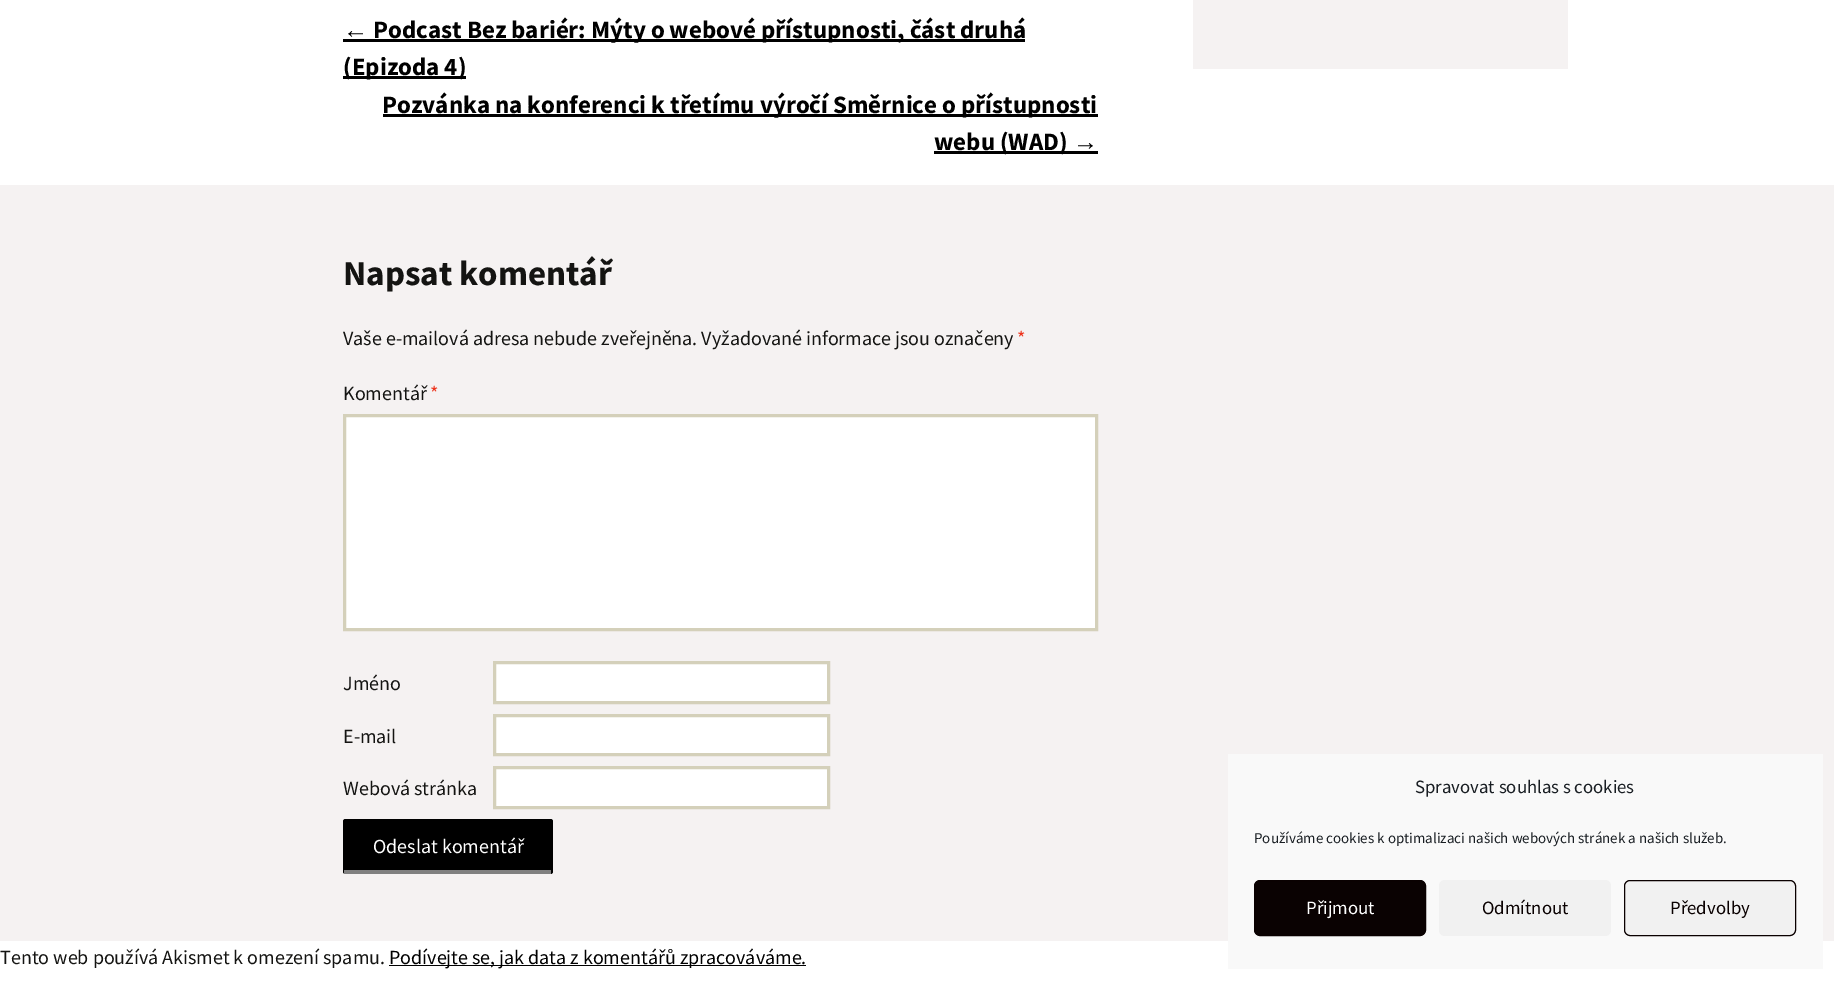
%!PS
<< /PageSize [1834 981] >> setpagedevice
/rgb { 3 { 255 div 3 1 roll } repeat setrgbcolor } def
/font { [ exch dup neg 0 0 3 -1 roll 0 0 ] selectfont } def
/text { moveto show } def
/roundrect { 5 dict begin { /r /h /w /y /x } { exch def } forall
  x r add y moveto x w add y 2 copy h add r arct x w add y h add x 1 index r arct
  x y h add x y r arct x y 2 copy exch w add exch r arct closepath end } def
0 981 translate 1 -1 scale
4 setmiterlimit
255 255 255 rgb
0 0 1834 981 rectfill
0 0 0 rgb
343 39 682 3 rectfill
343 76 123 3 rectfill
383 114 715 3 rectfill
934 151 164 3 rectfill
245 242 242 rgb
0 185 1834 756 rectfill
255 255 255 rgb
344.5 415.5 moveto 752 0 rlineto 0 214 rlineto -752 0 rlineto closepath gsave fill grestore
212 208 186 rgb
3 setlinewidth
stroke
255 255 255 rgb
494.5 662.5 moveto 334 0 rlineto 0 40 rlineto -334 0 rlineto closepath gsave fill grestore
212 208 186 rgb
stroke
255 255 255 rgb
494.5 715.5 moveto 334 0 rlineto 0 39 rlineto -334 0 rlineto closepath gsave fill grestore
212 208 186 rgb
stroke
255 255 255 rgb
494.5 767.5 moveto 334 0 rlineto 0 40 rlineto -334 0 rlineto closepath gsave fill grestore
212 208 186 rgb
stroke
0 0 0 rgb
343 819 210 55 2.5 roundrect fill
128 128 128 rgb
344 870 207 4 rectfill
0 0 0 rgb
389 965 417 1 rectfill
245 242 242 rgb
1193 0 375 69 rectfill
249 249 249 rgb
1228 754 595 215 rectfill
10 2 2 rgb
1254.5 880.5 171 55 5.5 roundrect gsave fill grestore
10 1 1 rgb
1 setlinewidth
stroke
241 241 241 rgb
1439 880 172 56 6 roundrect fill
1624.5 880.5 171 55 5.5 roundrect gsave fill grestore
10 0 0 rgb
stroke
/LiberationSans-Bold 25 font
0 0 0 rgb
(←) 343 38 text
/SourceSansPro-Bold 25 font
(Podcast Bez bariér: Mýty o webové přístupnosti, část druhá) 373 38 text
(\(Epizoda 4\)) 343 75 text
(Pozvánka na konferenci k třetímu výročí Směrnice o přístupnosti) 382 113 text
(webu \(WAD\)) 934 150 text
/LiberationSans-Bold 25 font
(→) 1073 150 text
/SourceSansPro-Bold 35 font
20 20 18 rgb
(Napsat komentář) 343 285 text
/SourceSansPro-Regular 20 font
(Vaše e-mailová adresa nebude zveřejněna. Vyžadované informace jsou označeny) 343 345 text
237 51 28 rgb
(*) 1017 345 text
20 20 18 rgb
(Komentář) 343 400 text
237 51 28 rgb
(*) 430 400 text
20 20 18 rgb
(Jméno) 343 690 text
(E-mail) 343 743 text
(Webová stránka) 343 795 text
255 255 255 rgb
(Odeslat komentář) 373 853 text
20 20 18 rgb
(Tento web používá Akismet k omezení spamu.) 0 964 text
0 0 0 rgb
(Podívejte se, jak data z komentářů zpracováváme.) 389 964 text
/SourceSansPro-Regular 18.75 font
25 30 35 rgb
(Spravovat souhlas s cookies) 1415 793 text
/SourceSansPro-Regular 15 font
(Používáme cookies k optimalizaci našich webových stránek a našich služeb.) 1254 843 text
/SourceSansPro-Regular 18.75 font
255 255 255 rgb
(Přijmout) 1306 914 text
10 1 1 rgb
(Odmítnout) 1482 914 text
(Předvolby) 1670 914 text
showpage
